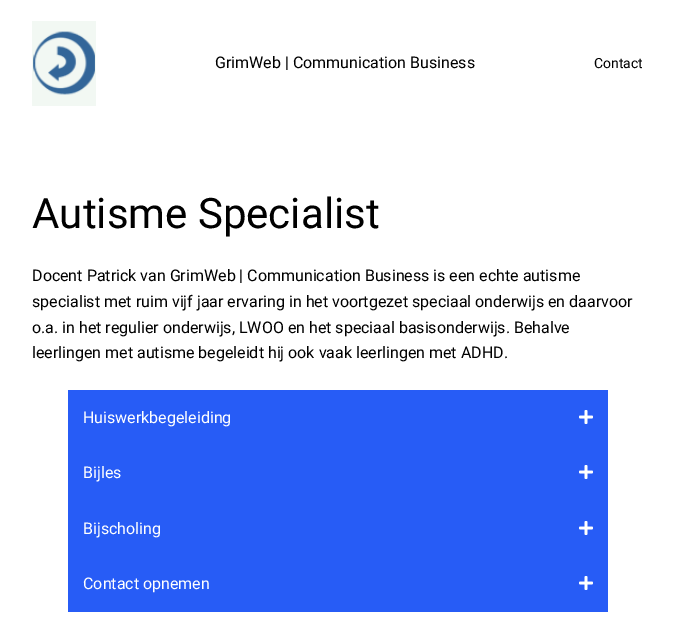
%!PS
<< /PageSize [675 618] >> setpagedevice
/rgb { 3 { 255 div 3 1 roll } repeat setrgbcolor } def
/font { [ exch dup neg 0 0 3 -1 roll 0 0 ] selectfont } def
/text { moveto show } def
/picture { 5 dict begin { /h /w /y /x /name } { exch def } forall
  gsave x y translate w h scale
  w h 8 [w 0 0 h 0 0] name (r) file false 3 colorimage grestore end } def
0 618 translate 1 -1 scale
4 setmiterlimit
255 255 255 rgb
0 0 675 618 rectfill
(img_01.rgb) 32 21 64 85 picture
39 92 246 rgb
68 390 540 222 rectfill
(img_02.rgb) 579 410 14 14 picture
(img_02.rgb) 579 465 14 14 picture
(img_02.rgb) 579 521 14 14 picture
(img_02.rgb) 579 576 14 14 picture
/Roboto-Regular 16 font
0 0 0 rgb
(GrimWeb | Communication Business) 215 68 text
/Roboto-Regular 14 font
(Contact) 594 68 text
/Roboto-Regular 42 font
(Autisme Specialist) 32 228 text
/Roboto-Regular 16 font
(Docent Patrick van GrimWeb | Communication Business is een echte autisme) 32 281 text
(specialist met ruim vijf jaar ervaring in het voortgezet speciaal onderwijs en daarvoor) 32 307 text
(o.a. in het regulier onderwijs, LWOO en het speciaal basisonderwijs. Behalve) 32 333 text
(leerlingen met autisme begeleidt hij ook vaak leerlingen met ADHD.) 32 358 text
255 255 255 rgb
(Huiswerkbegeleiding) 83 423 text
(Bijles) 83 478 text
(Bijscholing) 83 534 text
(Contact opnemen) 83 589 text
showpage
